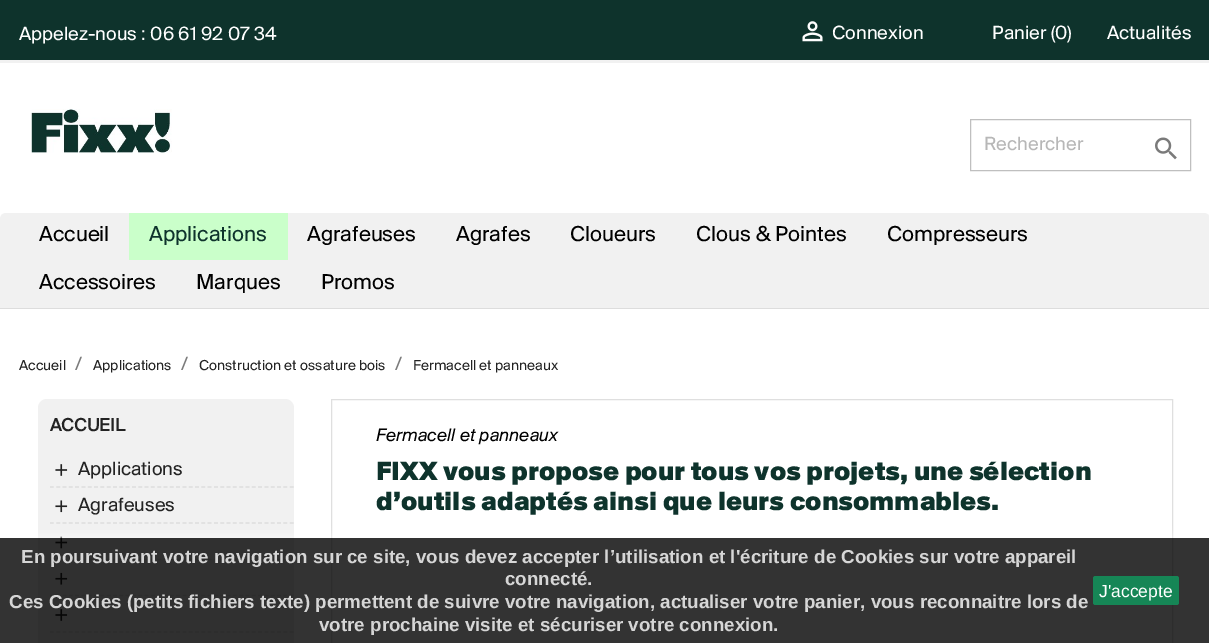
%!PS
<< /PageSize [1209 643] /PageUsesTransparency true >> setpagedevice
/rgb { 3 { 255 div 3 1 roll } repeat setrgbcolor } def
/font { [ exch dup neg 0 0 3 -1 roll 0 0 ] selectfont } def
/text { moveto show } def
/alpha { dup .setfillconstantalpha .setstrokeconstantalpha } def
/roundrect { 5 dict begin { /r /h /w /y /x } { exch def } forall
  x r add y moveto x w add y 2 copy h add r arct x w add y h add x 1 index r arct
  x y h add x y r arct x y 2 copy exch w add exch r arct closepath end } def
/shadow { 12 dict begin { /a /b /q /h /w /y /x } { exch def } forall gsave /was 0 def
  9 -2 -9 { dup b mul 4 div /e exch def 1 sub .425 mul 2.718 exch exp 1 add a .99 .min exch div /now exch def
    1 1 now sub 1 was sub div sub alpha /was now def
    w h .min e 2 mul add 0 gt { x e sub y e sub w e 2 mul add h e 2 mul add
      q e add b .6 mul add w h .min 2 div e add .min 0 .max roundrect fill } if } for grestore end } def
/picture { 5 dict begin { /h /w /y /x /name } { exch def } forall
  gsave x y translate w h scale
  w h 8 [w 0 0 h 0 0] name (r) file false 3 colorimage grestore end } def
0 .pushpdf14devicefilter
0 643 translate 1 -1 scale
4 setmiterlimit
255 255 255 rgb
0 0 1209 643 rectfill
14 51 44 rgb
0 0 1209 60 rectfill
241 241 241 rgb
0 60 1209 3 rectfill
(img_01.rgb) 802 21 21 21 picture
(img_02.rgb) 31 109 141 44 picture
191 191 191 rgb
970.5 119.5 220 51 rectstroke
(img_03.rgb) 1155 137 22 23 picture
241 241 241 rgb
6 213 moveto 1198 0 rlineto 3.5 0 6 2.5 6 6 rcurveto 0 90 rlineto -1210 0 rlineto 0 -90 rlineto 0 -3.5 2.5 -6 6 -6 rcurveto closepath fill
221 221 221 rgb
0 308 1209 1 rectfill
202 255 202 rgb
129 213 159 47 rectfill
241 241 241 rgb
38 399 256 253 9 roundrect fill
(img_04.rgb) 55 464 13 12 picture
221 221 221 rgb
1.2 setlinewidth
[3.75 2.56] 0 setdash
50 487 moveto 244 0 rlineto stroke
(img_05.rgb) 55 500 13 13 picture
50 523 moveto 244 0 rlineto stroke
(img_06.rgb) 55 536 13 13 picture
50 559.5 moveto 244 0 rlineto stroke
(img_07.rgb) 55 572 13 13 picture
50 595.5 moveto 244 0 rlineto stroke
(img_04.rgb) 55 609 13 12 picture
50 632 moveto 244 0 rlineto stroke
223 223 223 rgb
1 setlinewidth
[] 0 setdash
331.5 399.5 841 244 rectstroke
gsave
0 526 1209 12 rectclip
255 255 255 rgb
0 538 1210 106 0 6 0.8 shadow
grestore
0.8 alpha
0 0 0 rgb
0 538 1209 105 rectfill
15 155 95 rgb
1093 576 86 29 2.5 roundrect fill
/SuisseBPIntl-Regular 20 font
1 alpha
255 255 255 rgb
(Appelez-nous : 06 61 92 07 34) 19 40 text
(Connexion) 832 39 text
(Panier \(0\)) 992 39 text
(Actualités) 1107 39 text
183 183 183 rgb
(Rechercher) 984 150 text
/SuisseBPIntl-Regular 22.5 font
0 0 0 rgb
(Accueil) 39 241 text
14 51 44 rgb
(Applications) 149 241 text
0 0 0 rgb
(Agrafeuses) 307 241 text
(Agrafes) 456 241 text
(Cloueurs) 570 241 text
(Clous & Pointes) 696 241 text
(Compresseurs) 887 241 text
(Accessoires) 39 289 text
(Marques) 196 289 text
(Promos) 321 289 text
/SuisseBPIntl-Regular 15 font
35 35 35 rgb
(Accueil) 19 370 text
/SuisseBPIntl-Regular 20 font
122 122 122 rgb
(/) 75 370 text
/SuisseBPIntl-Regular 15 font
35 35 35 rgb
(Applications) 93 370 text
/SuisseBPIntl-Regular 20 font
122 122 122 rgb
(/) 181 370 text
/SuisseBPIntl-Regular 15 font
35 35 35 rgb
(Construction et ossature bois) 199 370 text
/SuisseBPIntl-Regular 20 font
122 122 122 rgb
(/) 395 370 text
/SuisseBPIntl-Regular 15 font
35 35 35 rgb
(Fermacell et panneaux) 413 370 text
/SuisseBPIntl-Bold 18.75 font
(ACCUEIL) 50 431 text
/SuisseBPIntl-Regular 20 font
(Applications) 78 475 text
(Agrafeuses) 78 511 text
/SuisseBPIntl-Italic 18.75 font
0 0 0 rgb
(Fermacell et panneaux) 376 441 text
/SuisseBPIntl-Black 27.5 font
14 51 44 rgb
(FIXX vous propose pour tous vos projets, une sélection) 376 480 text
(d’outils adaptés ainsi que leurs consommables.) 376 510 text
/LiberationSans-Bold 18.75 font
214 214 214 rgb
(En poursuivant votre navigation sur ce site, vous devez accepter l’utilisation et l'écriture de Cookies sur votre appareil) 21 563 text
(connecté.) 505 585 text
(Ces Cookies \(petits fichiers texte\) permettent de suivre votre navigation, actualiser votre panier, vous reconnaitre lors de) 9 608 text
(votre prochaine visite et sécuriser votre connexion.) 319 631 text
/LiberationSans-Regular 17.5 font
255 255 255 rgb
(J'accepte) 1099 597 text
.poppdf14devicefilter showpage
